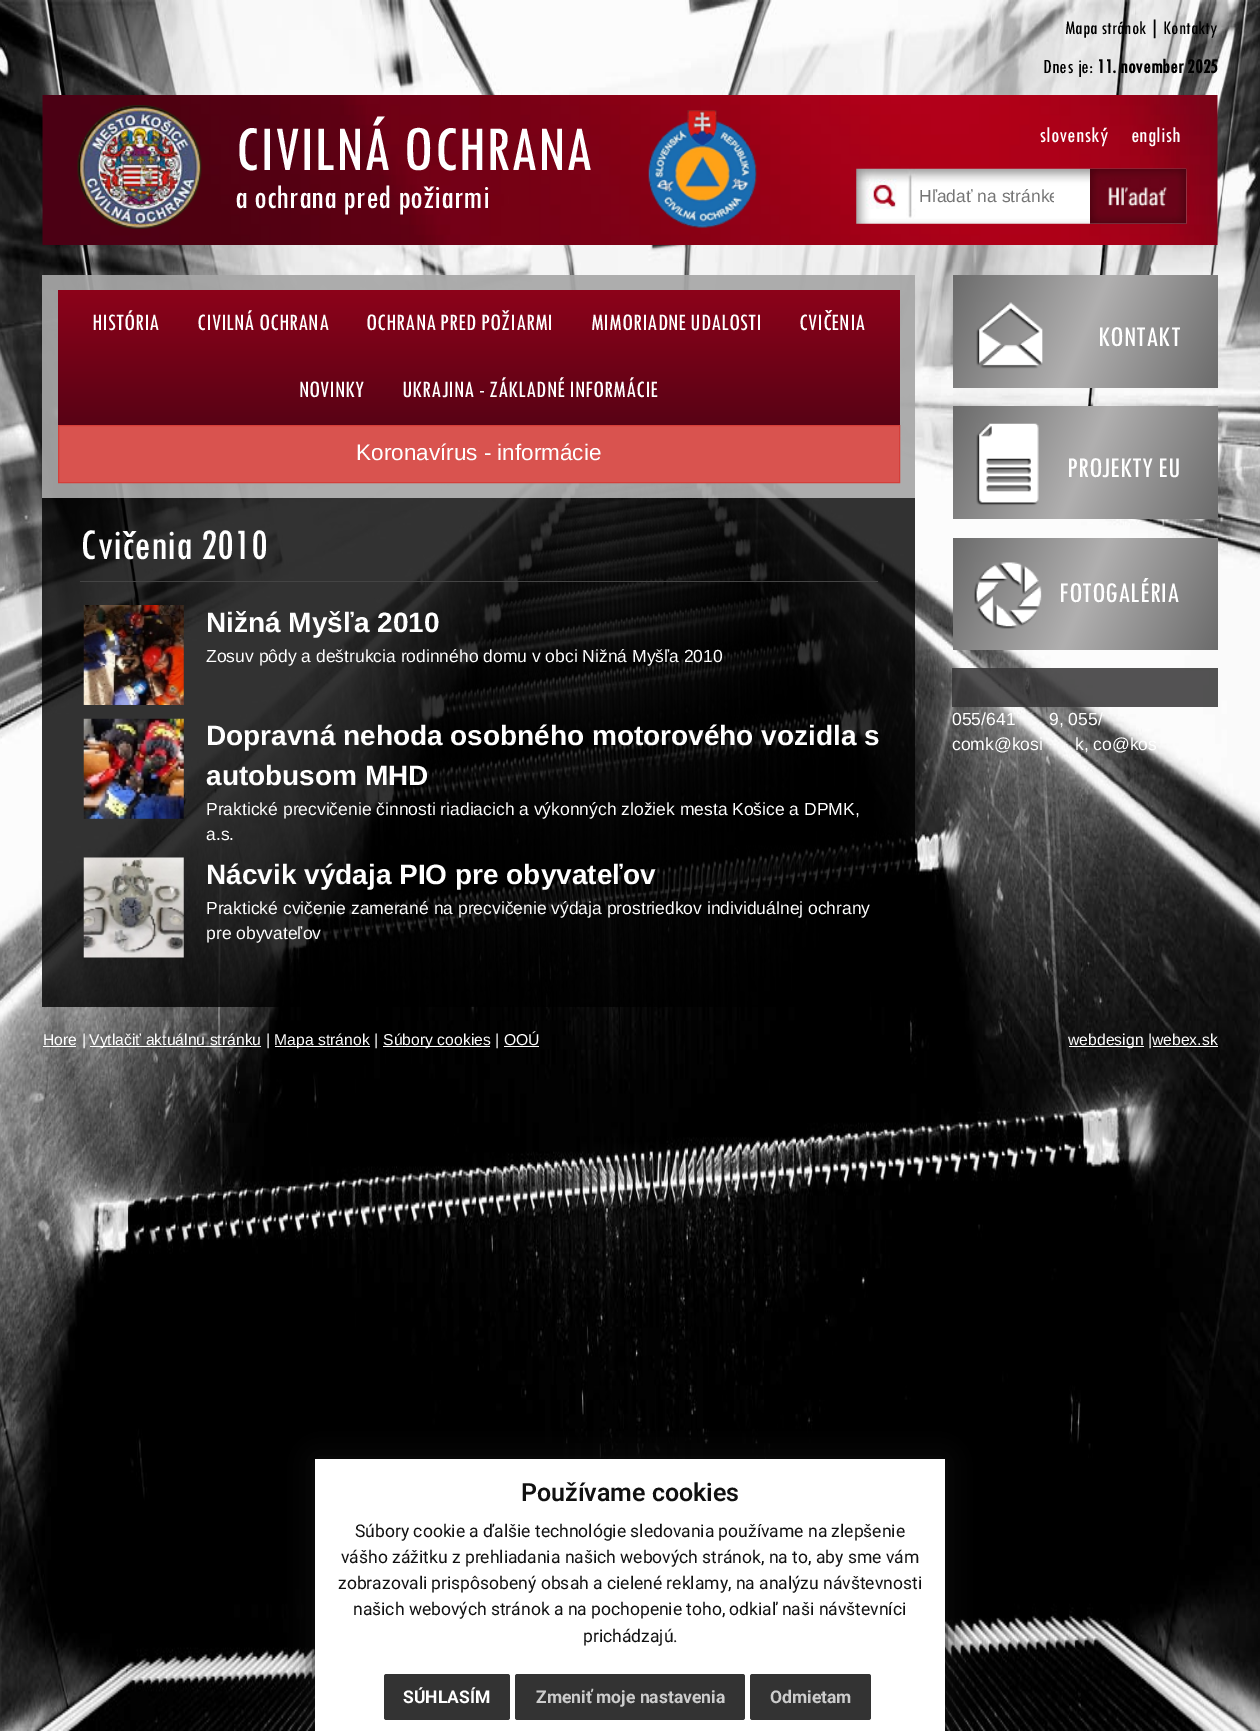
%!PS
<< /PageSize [1260 1731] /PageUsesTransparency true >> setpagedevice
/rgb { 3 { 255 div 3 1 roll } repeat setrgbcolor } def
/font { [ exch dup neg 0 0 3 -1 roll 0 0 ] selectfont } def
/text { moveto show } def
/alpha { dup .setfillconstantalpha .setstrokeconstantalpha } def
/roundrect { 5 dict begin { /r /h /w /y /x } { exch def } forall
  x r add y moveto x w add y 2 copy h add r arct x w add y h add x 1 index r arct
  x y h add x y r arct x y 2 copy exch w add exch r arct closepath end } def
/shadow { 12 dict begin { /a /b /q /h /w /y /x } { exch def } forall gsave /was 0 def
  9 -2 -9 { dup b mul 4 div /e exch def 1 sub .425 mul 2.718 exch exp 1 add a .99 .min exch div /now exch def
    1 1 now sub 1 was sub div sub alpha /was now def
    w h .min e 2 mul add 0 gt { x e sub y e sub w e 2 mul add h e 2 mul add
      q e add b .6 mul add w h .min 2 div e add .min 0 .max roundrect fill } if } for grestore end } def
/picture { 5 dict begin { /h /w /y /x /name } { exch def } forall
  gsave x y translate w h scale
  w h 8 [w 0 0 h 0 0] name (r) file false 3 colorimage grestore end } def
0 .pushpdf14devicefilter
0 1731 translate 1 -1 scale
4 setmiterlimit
255 255 255 rgb
0 0 1260 1731 rectfill
(img_01.rgb) 0 0 1260 1731 picture
(img_02.rgb) 42 95 1176 150 picture
(img_03.rgb) 77 105 125 124 picture
(img_04.rgb) 648 110 109 118 picture
(img_05.rgb) 856 168 331 56 picture
(img_06.rgb) 1090 168 97 56 picture
0.8 alpha
0 0 0 rgb
42 275 873 732 rectfill
0.6 alpha
255 255 255 rgb
42 275 873 223 rectfill
1 alpha
gsave 58 290 moveto 842 0 rlineto 0 135 rlineto -842 0 rlineto closepath clip newpath
<< /ShadingType 2 /ColorSpace /DeviceRGB /Coords [58 290 58 425] /Extend [true true] /Function << /FunctionType 2 /Domain [0 1] /C0 [0.553 0.012 0.102] /C1 [0.345 0.008 0.082] /N 1 >> >> shfill grestore
217 83 79 rgb
58.5 425.5 moveto 841 0 rlineto 0 57 rlineto -841 0 rlineto closepath gsave fill grestore
212 63 58 rgb
stroke
68 68 68 rgb
80 581 798 1 rectfill
(img_07.rgb) 83 605 101 100 picture
(img_08.rgb) 83 718 101 101 picture
(img_09.rgb) 83 857 101 101 picture
gsave 953 275 moveto 265 0 rlineto 0 113 rlineto -265 0 rlineto closepath clip newpath
<< /ShadingType 2 /ColorSpace /DeviceRGB /Coords [953 275 1218 388] /Extend [true true] /Function << /FunctionType 3 /Domain [0 1] /Functions [<< /FunctionType 2 /Domain [0 1] /C0 [0.42 0.42 0.42] /C1 [0.694 0.69 0.69] /N 1 >> << /FunctionType 2 /Domain [0 1] /C0 [0.694 0.69 0.69] /C1 [0.42 0.42 0.42] /N 1 >>] /Bounds [0.5] /Encode [0 1 0 1] >> >> shfill grestore
(img_10.rgb) 976 302 67 67 picture
gsave 953 406 moveto 265 0 rlineto 0 113 rlineto -265 0 rlineto closepath clip newpath
<< /ShadingType 2 /ColorSpace /DeviceRGB /Coords [953 406 1218 519] /Extend [true true] /Function << /FunctionType 3 /Domain [0 1] /Functions [<< /FunctionType 2 /Domain [0 1] /C0 [0.42 0.42 0.42] /C1 [0.694 0.69 0.69] /N 1 >> << /FunctionType 2 /Domain [0 1] /C0 [0.694 0.69 0.69] /C1 [0.42 0.42 0.42] /N 1 >>] /Bounds [0.5] /Encode [0 1 0 1] >> >> shfill grestore
(img_11.rgb) 976 423 63 83 picture
gsave 953 538 moveto 265 0 rlineto 0 112 rlineto -265 0 rlineto closepath clip newpath
<< /ShadingType 2 /ColorSpace /DeviceRGB /Coords [953 538 1218 650] /Extend [true true] /Function << /FunctionType 3 /Domain [0 1] /Functions [<< /FunctionType 2 /Domain [0 1] /C0 [0.42 0.42 0.42] /C1 [0.694 0.69 0.69] /N 1 >> << /FunctionType 2 /Domain [0 1] /C0 [0.694 0.69 0.69] /C1 [0.42 0.42 0.42] /N 1 >>] /Bounds [0.5] /Encode [0 1 0 1] >> >> shfill grestore
(img_12.rgb) 974 562 68 67 picture
0.85 alpha
53 52 53 rgb
952 668 266 39 rectfill
1 alpha
255 255 255 rgb
43 1046 33 1 rectfill
90 1046 171 1 rectfill
275 1046 95 1 rectfill
383 1046 107 1 rectfill
504 1046 35 1 rectfill
1069 1046 75 1 rectfill
1153 1046 65 1 rectfill
17 17 17 rgb
315 1459 630 272 0 12.5 1 shadow
255 255 255 rgb
315 1459 630 272 rectfill
51 51 51 rgb
384 1674 126 46 2.5 roundrect fill
515 1674 230 46 2.5 roundrect fill
750 1674 121 46 2.5 roundrect fill
/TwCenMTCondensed-Regular 20 font
0 0 0 rgb
(Mapa stránok) 1065 34 text
/LiberationSans-Regular 20 font
(|) 1152 34 text
/TwCenMTCondensed-Regular 20 font
(Kontakty) 1163 34 text
/TwCenMTCondensed-Regular 21 font
(Dnes je:) 1043 73 text
/TwCenMTCondensed-Bold 21 font
(11. november 2025) 1097 73 text
/TwCenMTCondensed-Regular 66.5 font
255 255 255 rgb
(CIVILNÁ OCHRANA) 235 170 text
/TwCenMTCondensed-Regular 35 font
(a ochrana pred požiarmi) 235 208 text
/TwCenMTCondensed-Regular 23 font
(slovenský) 1039 142 text
(english) 1131 142 text
gsave
919 186 135 20 rectclip
/LiberationSans-Regular 17.5 font
117 117 117 rgb
(Hľadať na stránke) 919 202 text
grestore
/TwCenMTCondensed-Regular 24.5 font
(HISTÓRIA) 92 330 text
(CIVILNÁ OCHRANA) 197 330 text
(OCHRANA PRED POŽIARMI) 366 330 text
(MIMORIADNE UDALOSTI) 591 330 text
(CVIČENIA) 799 330 text
(NOVINKY) 299 397 text
(UKRAJINA - ZÁKLADNÉ INFORMÁCIE) 402 397 text
/LiberationSans-Regular 22.5 font
(Koronavírus - informácie) 356 460 text
/TwCenMTCondensed-Regular 45.5 font
(Cvičenia 2010) 80 559 text
/LiberationSans-Bold 28 font
(Nižná Myšľa 2010) 206 632 text
/LiberationSans-Regular 17.5 font
(Zosuv pôdy a deštrukcia rodinného domu v obci Nižná Myšľa 2010) 206 662 text
/LiberationSans-Bold 28 font
(Dopravná nehoda osobného motorového vozidla s) 206 745 text
(autobusom MHD) 206 785 text
/LiberationSans-Regular 17.5 font
(Praktické precvičenie činnosti riadiacich a výkonných zložiek mesta Košice a DPMK,) 206 815 text
(a.s.) 206 840 text
/LiberationSans-Bold 28 font
(Nácvik výdaja PIO pre obyvateľov) 206 884 text
/LiberationSans-Regular 17.5 font
(Praktické cvičenie zamerané na precvičenie výdaja prostriedkov individuálnej ochrany) 206 914 text
(pre obyvateľov) 206 939 text
/TwCenMTCondensed-Regular 29.75 font
(KONTAKT) 1098 346 text
(PROJEKTY EU) 1067 477 text
(FOTOGALÉRIA) 1059 602 text
/LiberationSans-Regular 17.5 font
(055/641) 952 725 text
(9, 055/) 1049 725 text
(comk@kosi) 952 750 text
(k, co@kos) 1075 750 text
/LiberationSans-Regular 15.75 font
(Hore |) 43 1045 text
(Vytlačiť aktuálnu stránku |) 89 1045 text
(Mapa stránok |) 274 1045 text
(Súbory cookies | OOÚ) 383 1045 text
(webdesign |webex.sk) 1068 1045 text
/Roboto-SemiBold 25 font
17 17 17 rgb
(Používame cookies) 521 1501 text
/Roboto-Regular 17.5 font
(Súbory cookie a ďalšie technológie sledovania používame na zlepšenie) 355 1537 text
(vášho zážitku z prehliadania našich webových stránok, na to, aby sme vám) 341 1563 text
(zobrazovali prispôsobený obsah a cielené reklamy, na analýzu návštevnosti) 338 1589 text
(našich webových stránok a na pochopenie toho, odkiaľ naši návštevníci) 353 1615 text
(prichádzajú.) 583 1642 text
/Roboto-Bold 17.5 font
255 255 255 rgb
(SÚHLASÍM) 403 1703 text
204 204 204 rgb
(Zmeniť moje nastavenia) 536 1703 text
(Odmietam) 770 1703 text
.poppdf14devicefilter showpage
